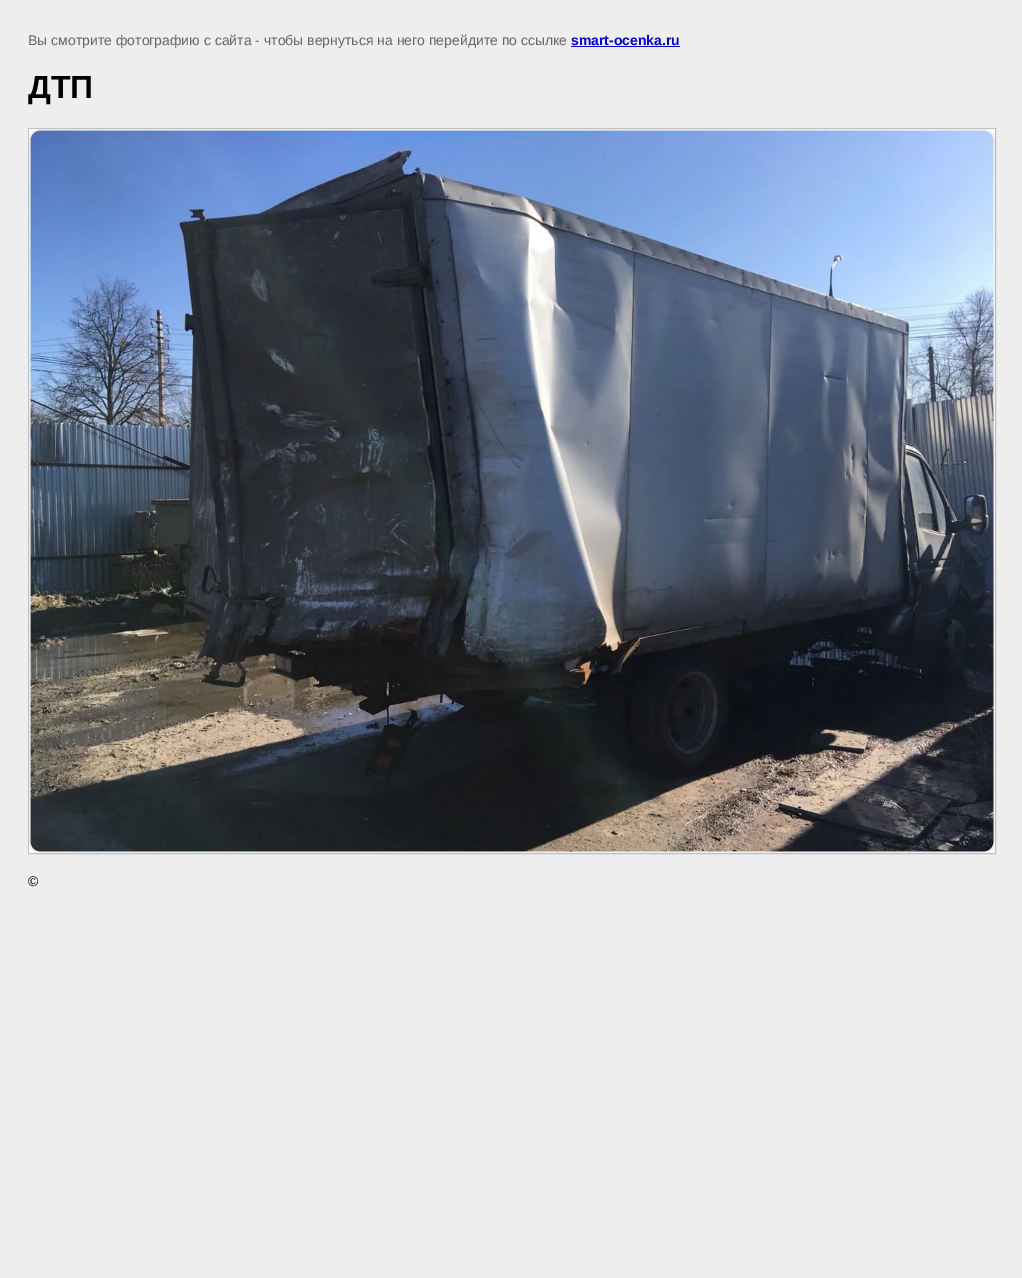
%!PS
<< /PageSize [1022 1278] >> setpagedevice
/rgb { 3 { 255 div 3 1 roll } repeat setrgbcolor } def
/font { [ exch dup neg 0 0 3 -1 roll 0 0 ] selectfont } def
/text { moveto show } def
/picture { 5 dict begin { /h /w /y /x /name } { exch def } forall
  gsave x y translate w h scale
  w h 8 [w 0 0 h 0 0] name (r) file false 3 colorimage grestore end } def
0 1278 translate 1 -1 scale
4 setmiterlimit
238 238 238 rgb
0 0 1022 1278 rectfill
0 0 204 rgb
571 46 109 1 rectfill
192 192 192 rgb
28.5 128.5 967 725 rectstroke
(img_01.rgb) 29 129 966 724 picture
/LiberationSans-Regular 14 font
102 102 102 rgb
(Вы смотрите фотографию с сайта - чтобы вернуться на него перейдите по ссылке) 28 45 text
/LiberationSans-Bold 14 font
0 0 204 rgb
(smart-ocenka.ru) 571 45 text
/LiberationSans-Bold 32 font
0 0 0 rgb
(ДТП) 28 98 text
/LiberationSans-Regular 14 font
(©) 28 886 text
showpage
